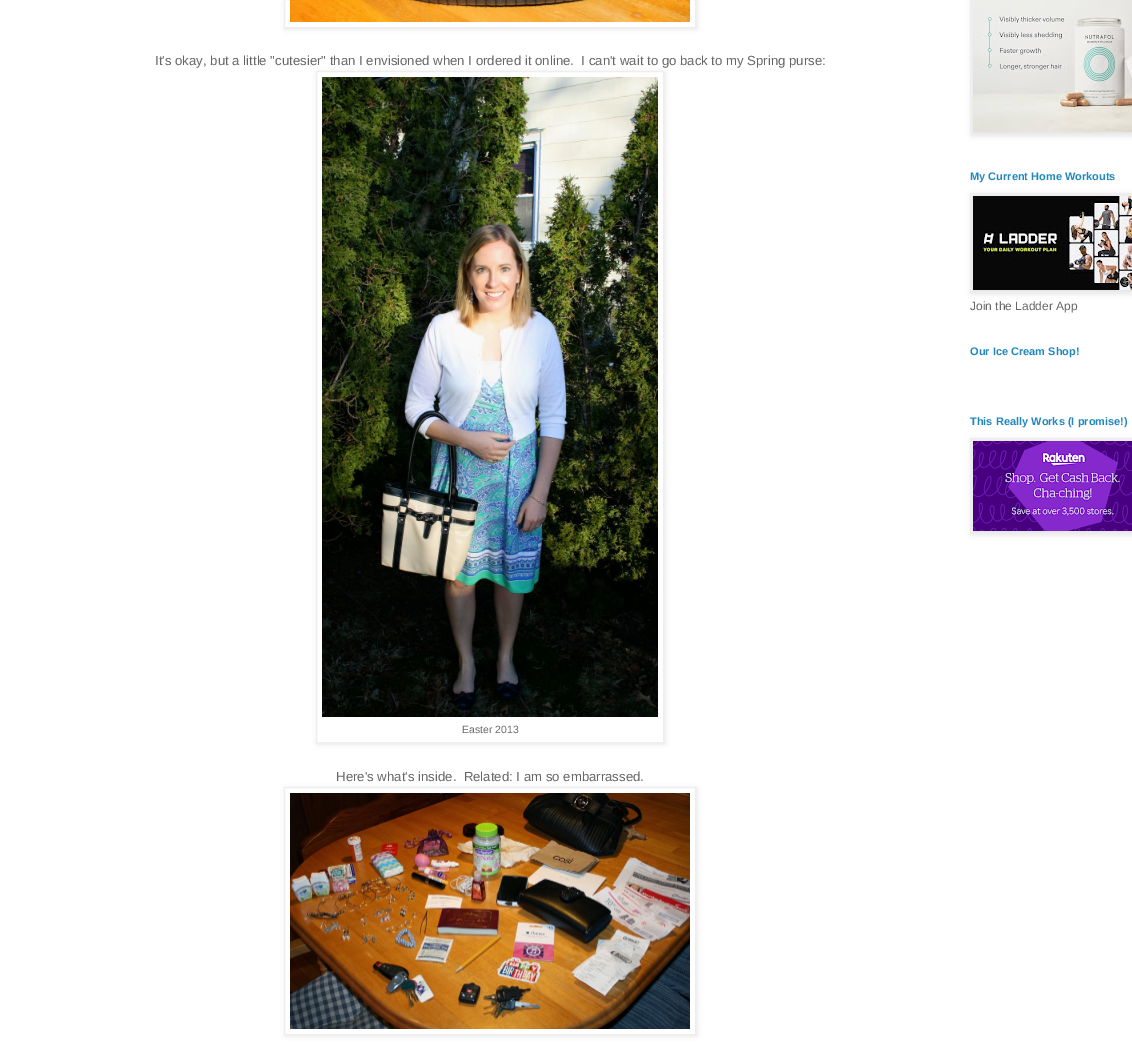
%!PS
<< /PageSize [1132 1064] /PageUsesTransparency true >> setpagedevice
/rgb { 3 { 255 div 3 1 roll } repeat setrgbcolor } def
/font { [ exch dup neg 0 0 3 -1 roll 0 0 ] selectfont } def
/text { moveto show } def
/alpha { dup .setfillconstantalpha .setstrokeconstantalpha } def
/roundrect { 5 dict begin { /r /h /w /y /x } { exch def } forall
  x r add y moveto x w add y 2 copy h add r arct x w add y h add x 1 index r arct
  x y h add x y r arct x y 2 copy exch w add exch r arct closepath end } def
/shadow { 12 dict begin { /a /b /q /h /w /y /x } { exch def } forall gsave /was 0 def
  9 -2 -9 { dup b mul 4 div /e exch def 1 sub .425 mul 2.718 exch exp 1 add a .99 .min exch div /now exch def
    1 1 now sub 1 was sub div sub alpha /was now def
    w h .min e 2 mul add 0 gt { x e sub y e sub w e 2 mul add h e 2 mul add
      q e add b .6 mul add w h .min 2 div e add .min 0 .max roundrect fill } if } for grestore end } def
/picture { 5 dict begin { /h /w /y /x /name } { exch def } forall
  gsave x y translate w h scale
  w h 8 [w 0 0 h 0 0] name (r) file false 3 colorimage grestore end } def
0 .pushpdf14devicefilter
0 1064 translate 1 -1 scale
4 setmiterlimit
255 255 255 rgb
0 0 1132 1064 rectfill
gsave
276 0 moveto 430 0 rlineto 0 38 rlineto -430 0 rlineto closepath 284 -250 moveto 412 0 rlineto 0 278 rlineto -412 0 rlineto closepath eoclip newpath
0 0 0 rgb
285 -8 412 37 0 2.5 0.1 shadow
grestore
238 238 238 rgb
284.5 -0.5 411 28 rectstroke
(img_01.rgb) 290 0 400 22 picture
gsave
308 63 moveto 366 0 rlineto 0 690 rlineto -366 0 rlineto closepath 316 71 moveto 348 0 rlineto 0 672 rlineto -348 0 rlineto closepath eoclip newpath
0 0 0 rgb
317 72 348 672 0 2.5 0.1 shadow
grestore
316.5 71.5 347 671 rectstroke
(img_02.rgb) 322 77 336 640 picture
gsave
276 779 moveto 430 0 rlineto 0 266 rlineto -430 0 rlineto closepath 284 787 moveto 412 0 rlineto 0 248 rlineto -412 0 rlineto closepath eoclip newpath
0 0 0 rgb
285 788 412 248 0 2.5 0.1 shadow
grestore
284.5 787.5 411 247 rectstroke
(img_03.rgb) 290 793 400 236 picture
0 0 0 rgb
971 -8 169 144 0 2.5 0.1 shadow
238 238 238 rgb
970.5 -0.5 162 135 rectstroke
(img_04.rgb) 973 0 159 132 picture
0 0 0 rgb
971 194 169 100 0 2.5 0.1 shadow
238 238 238 rgb
970.5 193.5 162 99 rectstroke
(img_05.rgb) 973 196 159 94 picture
0 0 0 rgb
971 439 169 96 0 2.5 0.1 shadow
238 238 238 rgb
970.5 438.5 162 95 rectstroke
(img_06.rgb) 973 441 159 90 picture
/LiberationSans-Regular 13.2 font
102 102 102 rgb
(It's okay, but a little "cutesier" than I envisioned when I ordered it online.  I can't wait to go back to my Spring purse:) 155 65 text
/LiberationSans-Regular 10.5 font
(Easter 2013) 462 733 text
/LiberationSans-Regular 13.2 font
(Here's what's inside.  Related: I am so embarrassed.) 336 781 text
/LiberationSans-Bold 11 font
34 136 187 rgb
(My Current Home Workouts) 970 180 text
/LiberationSans-Regular 12 font
102 102 102 rgb
(Join the Ladder App) 970 310 text
/LiberationSans-Bold 11 font
34 136 187 rgb
(Our Ice Cream Shop!) 970 355 text
(This Really Works \(I promise!\)) 970 425 text
.poppdf14devicefilter showpage
